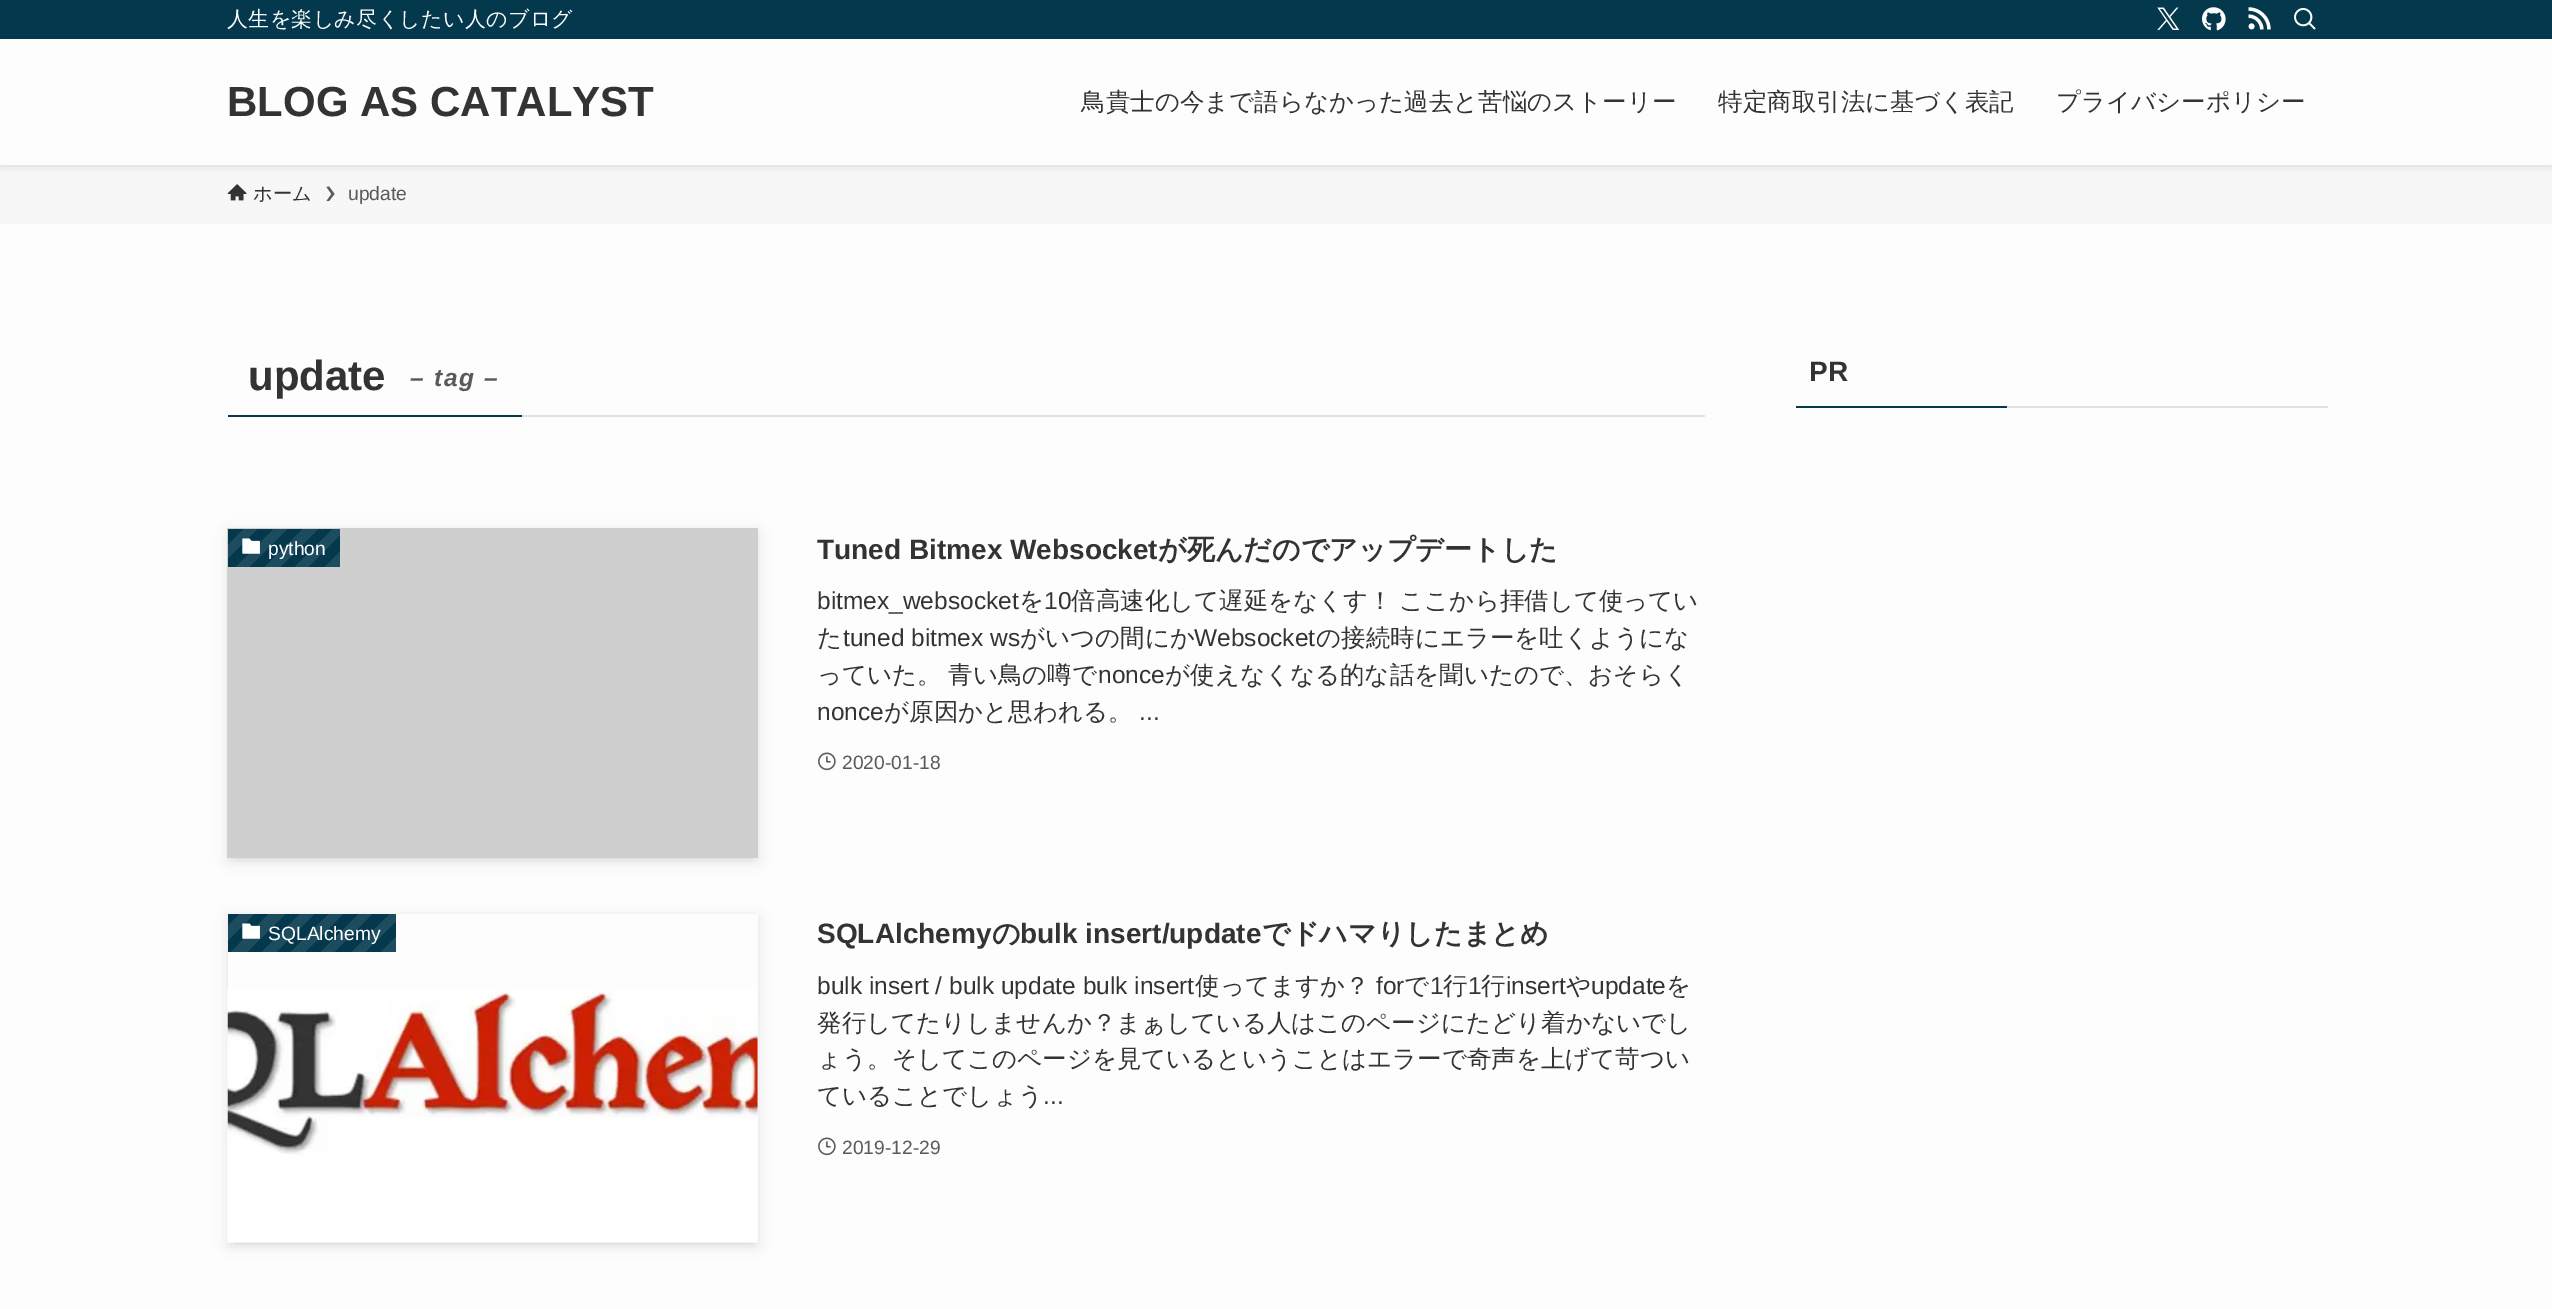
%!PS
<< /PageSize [2552 1309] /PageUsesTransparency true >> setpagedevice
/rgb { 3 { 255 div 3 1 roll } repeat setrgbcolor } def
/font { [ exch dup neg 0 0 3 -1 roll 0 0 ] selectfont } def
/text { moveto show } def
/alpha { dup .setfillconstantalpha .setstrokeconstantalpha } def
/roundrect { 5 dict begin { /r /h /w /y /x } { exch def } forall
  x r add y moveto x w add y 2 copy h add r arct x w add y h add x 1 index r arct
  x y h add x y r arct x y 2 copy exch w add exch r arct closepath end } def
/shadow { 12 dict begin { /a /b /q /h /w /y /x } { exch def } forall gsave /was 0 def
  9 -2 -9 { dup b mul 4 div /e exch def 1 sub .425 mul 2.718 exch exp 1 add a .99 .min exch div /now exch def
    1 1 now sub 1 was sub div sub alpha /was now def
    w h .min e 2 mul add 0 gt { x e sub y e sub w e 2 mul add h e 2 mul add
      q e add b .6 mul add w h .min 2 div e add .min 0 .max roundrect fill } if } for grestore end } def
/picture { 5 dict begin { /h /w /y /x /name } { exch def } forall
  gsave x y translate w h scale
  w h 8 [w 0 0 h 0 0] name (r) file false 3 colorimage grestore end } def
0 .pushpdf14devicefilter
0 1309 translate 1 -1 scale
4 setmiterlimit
253 253 253 rgb
0 0 2552 1309 rectfill
247 247 247 rgb
0 165 2552 59 rectfill
0 0 0 rgb
0 2 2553 164 0 3.5 0.12 shadow
253 253 253 rgb
0 39 2552 126 rectfill
4 56 76 rgb
0 0 2552 39 rectfill
(img_01.rgb) 2157 7 23 23 picture
(img_02.rgb) 2202 7 24 24 picture
(img_03.rgb) 2248 7 23 23 picture
(img_04.rgb) 2294 8 22 22 picture
(img_05.rgb) 227 184 20 17 picture
90 90 90 rgb
329 186.5 moveto -2.5 0.5 rlineto 5 7 rlineto -5 7 rlineto 2.5 0 rlineto 5.5 -7 rlineto closepath fill
226 226 226 rgb
522 415 1183 2 rectfill
4 56 76 rgb
228 415 294 2 rectfill
0 0 0 rgb
235 543 516 315 0 3.5 0.1 shadow
228 532 530 329 0 7 0.1 shadow
207 207 207 rgb
227 528 531 330 rectfill
gsave 228 529 moveto 112 0 rlineto 0 38 rlineto -112 0 rlineto closepath clip newpath
<< /ShadingType 2 /ColorSpace /DeviceRGB /Coords [321 585 232 496] /Extend [true true] /Function << /FunctionType 3 /Domain [0 1] /Functions [<< /FunctionType 2 /Domain [0 1] /C0 [0.114 0.298 0.369] /C1 [0.114 0.298 0.369] /N 1 >> << /FunctionType 2 /Domain [0 1] /C0 [0.016 0.22 0.298] /C1 [0.016 0.22 0.298] /N 1 >> << /FunctionType 2 /Domain [0 1] /C0 [0.114 0.298 0.369] /C1 [0.114 0.298 0.369] /N 1 >> << /FunctionType 2 /Domain [0 1] /C0 [0.016 0.22 0.298] /C1 [0.016 0.22 0.298] /N 1 >> << /FunctionType 2 /Domain [0 1] /C0 [0.114 0.298 0.369] /C1 [0.114 0.298 0.369] /N 1 >> << /FunctionType 2 /Domain [0 1] /C0 [0.016 0.22 0.298] /C1 [0.016 0.22 0.298] /N 1 >> << /FunctionType 2 /Domain [0 1] /C0 [0.114 0.298 0.369] /C1 [0.114 0.298 0.369] /N 1 >> << /FunctionType 2 /Domain [0 1] /C0 [0.016 0.22 0.298] /C1 [0.016 0.22 0.298] /N 1 >> << /FunctionType 2 /Domain [0 1] /C0 [0.114 0.298 0.369] /C1 [0.114 0.298 0.369] /N 1 >> << /FunctionType 2 /Domain [0 1] /C0 [0.016 0.22 0.298] /C1 [0.016 0.22 0.298] /N 1 >> << /FunctionType 2 /Domain [0 1] /C0 [0.114 0.298 0.369] /C1 [0.114 0.298 0.369] /N 1 >> << /FunctionType 2 /Domain [0 1] /C0 [0.016 0.22 0.298] /C1 [0.016 0.22 0.298] /N 1 >>] /Bounds [0.08 0.17 0.25 0.33 0.42 0.5 0.58 0.67 0.75 0.83 0.92] /Encode [0 1 0 1 0 1 0 1 0 1 0 1 0 1 0 1 0 1 0 1 0 1 0 1] >> >> shfill grestore
(img_06.rgb) 242 538 18 16 picture
(img_07.rgb) 818 752 18 19 picture
gsave
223 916 moveto 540 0 rlineto 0 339 rlineto -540 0 rlineto closepath 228 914 moveto 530 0 rlineto 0 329 rlineto -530 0 rlineto closepath eoclip newpath
0 0 0 rgb
235 928 516 315 0 3.5 0.1 shadow
grestore
gsave
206 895 moveto 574 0 rlineto 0 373 rlineto -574 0 rlineto closepath 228 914 moveto 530 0 rlineto 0 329 rlineto -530 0 rlineto closepath eoclip newpath
0 0 0 rgb
228 917 530 329 0 7 0.1 shadow
grestore
gsave 228 914 moveto 168 0 rlineto 0 38 rlineto -168 0 rlineto closepath clip newpath
<< /ShadingType 2 /ColorSpace /DeviceRGB /Coords [363 984 259 880] /Extend [true true] /Function << /FunctionType 3 /Domain [0 1] /Functions [<< /FunctionType 2 /Domain [0 1] /C0 [0.114 0.298 0.369] /C1 [0.114 0.298 0.369] /N 1 >> << /FunctionType 2 /Domain [0 1] /C0 [0.016 0.22 0.298] /C1 [0.016 0.22 0.298] /N 1 >> << /FunctionType 2 /Domain [0 1] /C0 [0.114 0.298 0.369] /C1 [0.114 0.298 0.369] /N 1 >> << /FunctionType 2 /Domain [0 1] /C0 [0.016 0.22 0.298] /C1 [0.016 0.22 0.298] /N 1 >> << /FunctionType 2 /Domain [0 1] /C0 [0.114 0.298 0.369] /C1 [0.114 0.298 0.369] /N 1 >> << /FunctionType 2 /Domain [0 1] /C0 [0.016 0.22 0.298] /C1 [0.016 0.22 0.298] /N 1 >> << /FunctionType 2 /Domain [0 1] /C0 [0.114 0.298 0.369] /C1 [0.114 0.298 0.369] /N 1 >> << /FunctionType 2 /Domain [0 1] /C0 [0.016 0.22 0.298] /C1 [0.016 0.22 0.298] /N 1 >> << /FunctionType 2 /Domain [0 1] /C0 [0.114 0.298 0.369] /C1 [0.114 0.298 0.369] /N 1 >> << /FunctionType 2 /Domain [0 1] /C0 [0.016 0.22 0.298] /C1 [0.016 0.22 0.298] /N 1 >> << /FunctionType 2 /Domain [0 1] /C0 [0.114 0.298 0.369] /C1 [0.114 0.298 0.369] /N 1 >> << /FunctionType 2 /Domain [0 1] /C0 [0.016 0.22 0.298] /C1 [0.016 0.22 0.298] /N 1 >> << /FunctionType 2 /Domain [0 1] /C0 [0.114 0.298 0.369] /C1 [0.114 0.298 0.369] /N 1 >> << /FunctionType 2 /Domain [0 1] /C0 [0.016 0.22 0.298] /C1 [0.016 0.22 0.298] /N 1 >>] /Bounds [0.07 0.14 0.21 0.29 0.36 0.43 0.5 0.57 0.64 0.71 0.79 0.86 0.93] /Encode [0 1 0 1 0 1 0 1 0 1 0 1 0 1 0 1 0 1 0 1 0 1 0 1 0 1 0 1] >> >> shfill grestore
(img_08.rgb) 242 923 18 16 picture
(img_09.rgb) 227 989 531 254 picture
(img_07.rgb) 818 1137 18 19 picture
4 56 76 rgb
1796 406 211 2 rectfill
226 226 226 rgb
2007 406 321 2 rectfill
/WenQuanYiZenHei-Medium 21 font
255 255 255 rgb
227 26 moveto 0.3 0 (人生を楽しみ尽くしたい人のブログ) ashow
/LiberationSans-Bold 42 font
51 51 51 rgb
(BLOG AS CATALYST) 227 116 text
/WenQuanYiZenHei-Medium 24.5 font
(鳥貴士の今まで語らなかった過去と苦悩のストーリー) 1081 110 text
(特定商取引法に基づく表記) 1718 110 text
(プライバシーポリシー) 2056 110 text
/WenQuanYiZenHei-Medium 19.25 font
(ホーム) 253 200 text
/LiberationSans-Regular 19.25 font
90 90 90 rgb
(update) 348 200 text
/LiberationSans-Bold 42 font
51 51 51 rgb
(update) 248 390 text
/LiberationSans-BoldItalic 24.5 font
90 90 90 rgb
410 386 moveto 1.75 0 (– tag –) ashow
/LiberationSans-Regular 19.25 font
255 255 255 rgb
(python) 268 555 text
/LiberationSans-Bold 28 font
51 51 51 rgb
(Tuned Bitmex Websocket) 817 559 text
/WenQuanYiZenHei-Bold 28 font
(が死んだのでアップデートした) 1158 559 text
/LiberationSans-Regular 24.5 font
(bitmex_websocket) 817 609 text
/WenQuanYiZenHei-Medium 24.5 font
(を) 1019 609 text
/LiberationSans-Regular 24.5 font
(10) 1044 609 text
/WenQuanYiZenHei-Medium 24.5 font
1071 609 moveto -1 0 32 (倍高速化して遅延をなくす！ ここから拝借して使ってい) widthshow
(た) 817 646 text
/LiberationSans-Regular 24.5 font
(tuned bitmex ws) 843 646 text
/WenQuanYiZenHei-Medium 24.5 font
(がいつの間にか) 1020 646 text
/LiberationSans-Regular 24.5 font
(Websocket) 1194 646 text
/WenQuanYiZenHei-Medium 24.5 font
(の接続時にエラーを吐くようにな) 1316 646 text
817 683 moveto -1 0 32 (っていた。 青い鳥の噂で) widthshow
/LiberationSans-Regular 24.5 font
(nonce) 1098 683 text
/WenQuanYiZenHei-Medium 24.5 font
(が使えなくなる的な話を聞いたので、おそらく) 1165 683 text
/LiberationSans-Regular 24.5 font
(nonce) 817 720 text
/WenQuanYiZenHei-Medium 24.5 font
(が原因かと思われる。) 884 720 text
/LiberationSans-Regular 24.5 font
(...) 1139 720 text
/LiberationSans-Regular 19.25 font
90 90 90 rgb
(2020-01-18) 842 769 text
255 255 255 rgb
(SQLAlchemy) 268 940 text
/LiberationSans-Bold 28 font
51 51 51 rgb
(SQLAlchemy) 817 943 text
/WenQuanYiZenHei-Bold 28 font
(の) 992 943 text
/LiberationSans-Bold 28 font
(bulk insert/update) 1020 943 text
/WenQuanYiZenHei-Bold 28 font
(でドハマりしたまとめ) 1262 943 text
/LiberationSans-Regular 24.5 font
(bulk insert / bulk update bulk insert) 817 994 text
/WenQuanYiZenHei-Medium 24.5 font
(使ってますか？) 1195 994 text
/LiberationSans-Regular 24.5 font
(for) 1376 994 text
/WenQuanYiZenHei-Medium 24.5 font
(で) 1404 994 text
/LiberationSans-Regular 24.5 font
(1) 1430 994 text
/WenQuanYiZenHei-Medium 24.5 font
(行) 1443 994 text
/LiberationSans-Regular 24.5 font
(1) 1468 994 text
/WenQuanYiZenHei-Medium 24.5 font
(行) 1481 994 text
/LiberationSans-Regular 24.5 font
(insert) 1506 994 text
/WenQuanYiZenHei-Medium 24.5 font
(や) 1566 994 text
/LiberationSans-Regular 24.5 font
(update) 1591 994 text
/WenQuanYiZenHei-Medium 24.5 font
(を) 1666 994 text
(発行してたりしませんか？まぁしている人はこのページにたどり着かないでし) 817 1031 text
(ょう。そしてこのページを見ているということはエラーで奇声を上げて苛つい) 817 1067 text
(ていることでしょう) 817 1104 text
/LiberationSans-Regular 24.5 font
(...) 1043 1104 text
/LiberationSans-Regular 19.25 font
90 90 90 rgb
(2019-12-29) 842 1154 text
/LiberationSans-Bold 28 font
51 51 51 rgb
(PR) 1809 381 text
.poppdf14devicefilter showpage
